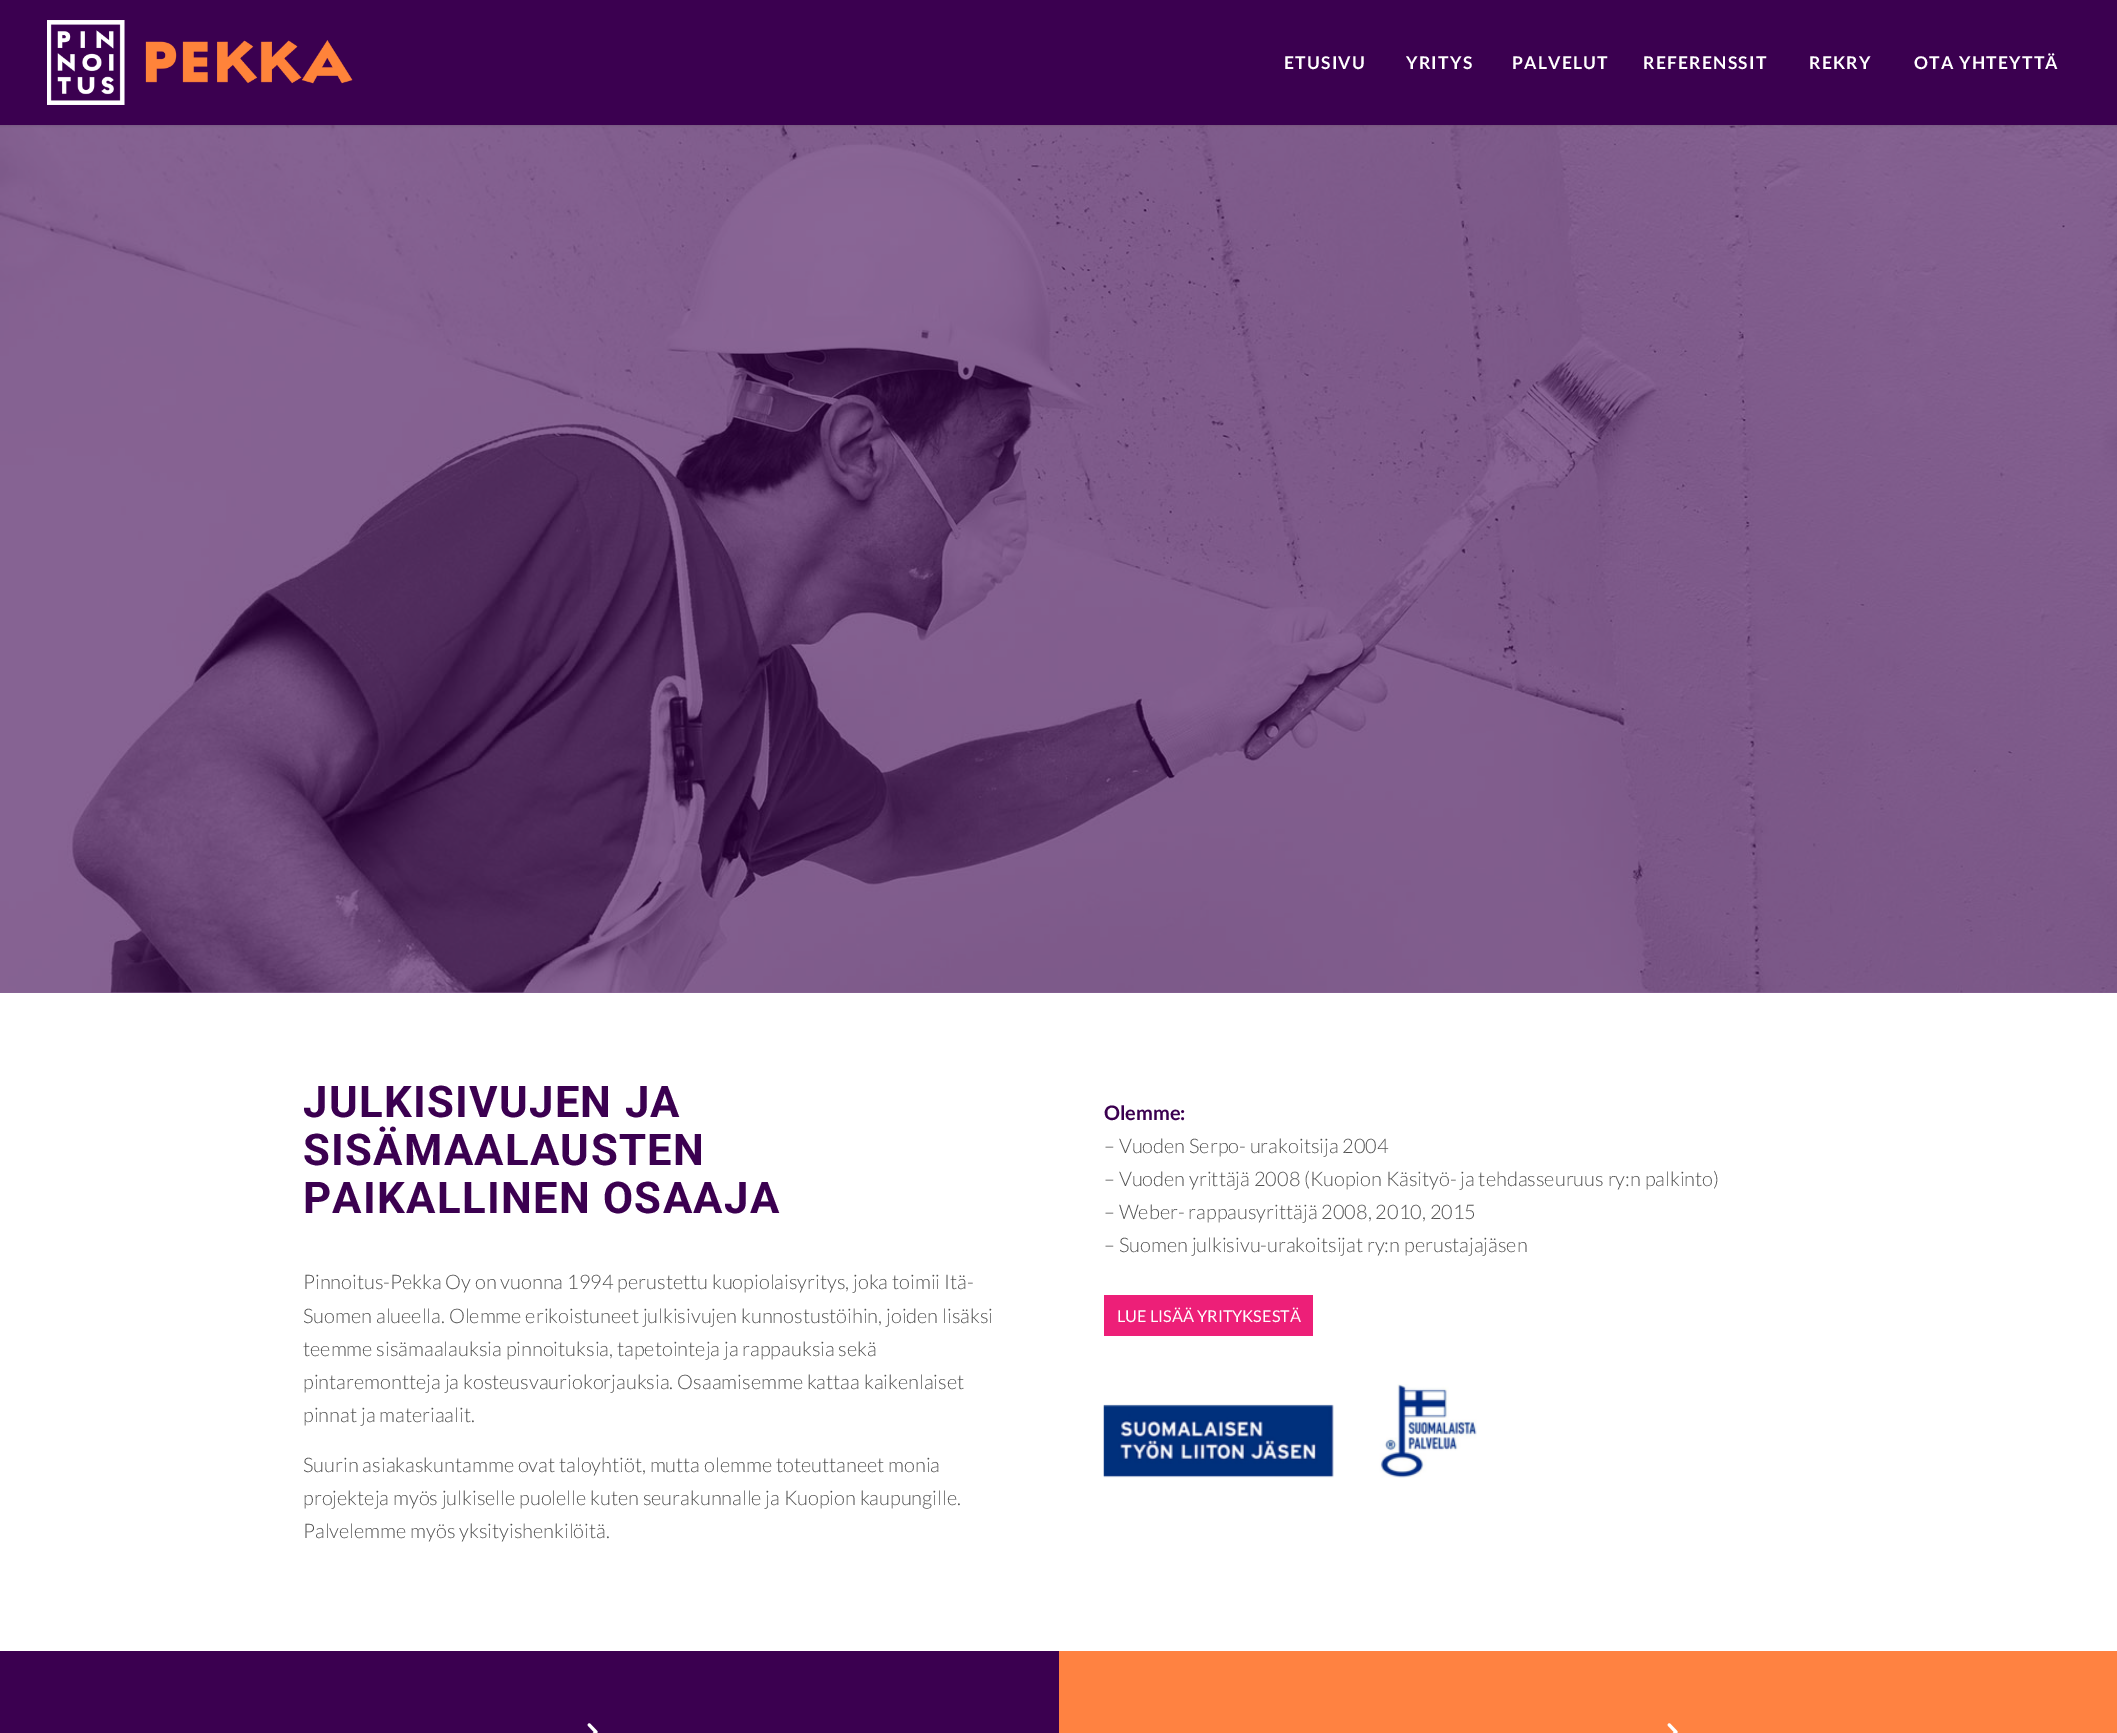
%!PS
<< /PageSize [2117 1733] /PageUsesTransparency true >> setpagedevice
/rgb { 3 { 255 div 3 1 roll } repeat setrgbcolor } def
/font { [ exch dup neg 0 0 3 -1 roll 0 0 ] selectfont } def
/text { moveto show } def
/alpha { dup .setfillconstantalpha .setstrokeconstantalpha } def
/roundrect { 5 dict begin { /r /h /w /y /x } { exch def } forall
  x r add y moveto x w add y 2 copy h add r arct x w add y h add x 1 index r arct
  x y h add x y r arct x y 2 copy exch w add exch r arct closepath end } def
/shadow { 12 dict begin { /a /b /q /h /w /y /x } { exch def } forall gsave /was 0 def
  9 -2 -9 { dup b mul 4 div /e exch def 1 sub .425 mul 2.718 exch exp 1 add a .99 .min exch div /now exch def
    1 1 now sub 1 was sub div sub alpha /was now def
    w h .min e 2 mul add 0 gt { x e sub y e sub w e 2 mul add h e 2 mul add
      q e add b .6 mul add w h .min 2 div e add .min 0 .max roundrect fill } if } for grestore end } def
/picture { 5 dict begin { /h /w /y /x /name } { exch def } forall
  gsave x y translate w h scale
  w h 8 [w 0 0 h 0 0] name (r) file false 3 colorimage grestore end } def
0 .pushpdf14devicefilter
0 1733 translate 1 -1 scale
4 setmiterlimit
137 102 150 rgb
0 0 2117 1733 rectfill
(img_02.rgb) 0 125 2117 868 picture
0 0 0 rgb
-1 -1 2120 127 0 1 0.1 shadow
59 0 80 rgb
0 0 2117 125 rectfill
(img_01.rgb) 47 20 306 85 picture
255 255 255 rgb
0 993 2117 658 rectfill
237 31 120 rgb
1104 1295 209 41 rectfill
(img_03.rgb) 1103 1384 374 94 picture
59 0 80 rgb
0 1651 1059 82 rectfill
(img_04.rgb) 587 1723 11 10 picture
255 130 65 rgb
1059 1651 1058 82 rectfill
(img_05.rgb) 1667 1723 11 10 picture
/Lato-Bold 17.5 font
255 255 255 rgb
1284 69 moveto 1.25 0 (ETUSIVU) ashow
1406 69 moveto 1.25 0 (YRITYS) ashow
1512 69 moveto 1.25 0 (PALVELUT) ashow
1643 69 moveto 1.25 0 (REFERENSSIT) ashow
1809 69 moveto 1.25 0 (REKRY) ashow
1914 69 moveto 1.25 0 (OTA YHTEYTTÄ) ashow
/Roboto-Bold 43.75 font
59 0 80 rgb
303 1117 moveto 1.25 0 (JULKISIVUJEN JA) ashow
303 1165 moveto 1.25 0 (SISÄMAALAUSTEN) ashow
303 1213 moveto 1.25 0 (PAIKALLINEN OSAAJA) ashow
/Lato-Light 20 font
80 80 80 rgb
(Pinnoitus-Pekka Oy on vuonna 1994 perustettu kuopiolaisyritys, joka toimii Itä-) 303 1289 text
(Suomen alueella. Olemme erikoistuneet julkisivujen kunnostustöihin, joiden lisäksi) 303 1323 text
(teemme sisämaalauksia pinnoituksia, tapetointeja ja rappauksia sekä) 303 1356 text
(pintaremontteja ja kosteusvauriokorjauksia. Osaamisemme kattaa kaikenlaiset) 303 1389 text
(pinnat ja materiaalit.) 303 1422 text
(Suurin asiakaskuntamme ovat taloyhtiöt, mutta olemme toteuttaneet monia) 303 1472 text
(projekteja myös julkiselle puolelle kuten seurakunnalle ja Kuopion kaupungille.) 303 1505 text
(Palvelemme myös yksityishenkilöitä.) 303 1538 text
/Lato-Bold 20 font
59 0 80 rgb
(Olemme:) 1104 1120 text
/Lato-Light 20 font
80 80 80 rgb
(– Vuoden Serpo- urakoitsija 2004) 1104 1153 text
(– Vuoden yrittäjä 2008 \(Kuopion Käsityö- ja tehdasseuruus ry:n palkinto\)) 1104 1186 text
(– Weber- rappausyrittäjä 2008, 2010, 2015) 1104 1219 text
(– Suomen julkisivu-urakoitsijat ry:n perustajajäsen) 1104 1252 text
/Lato-Regular 16.25 font
255 255 255 rgb
(LUE LISÄÄ YRITYKSESTÄ) 1117 1322 text
.poppdf14devicefilter showpage
